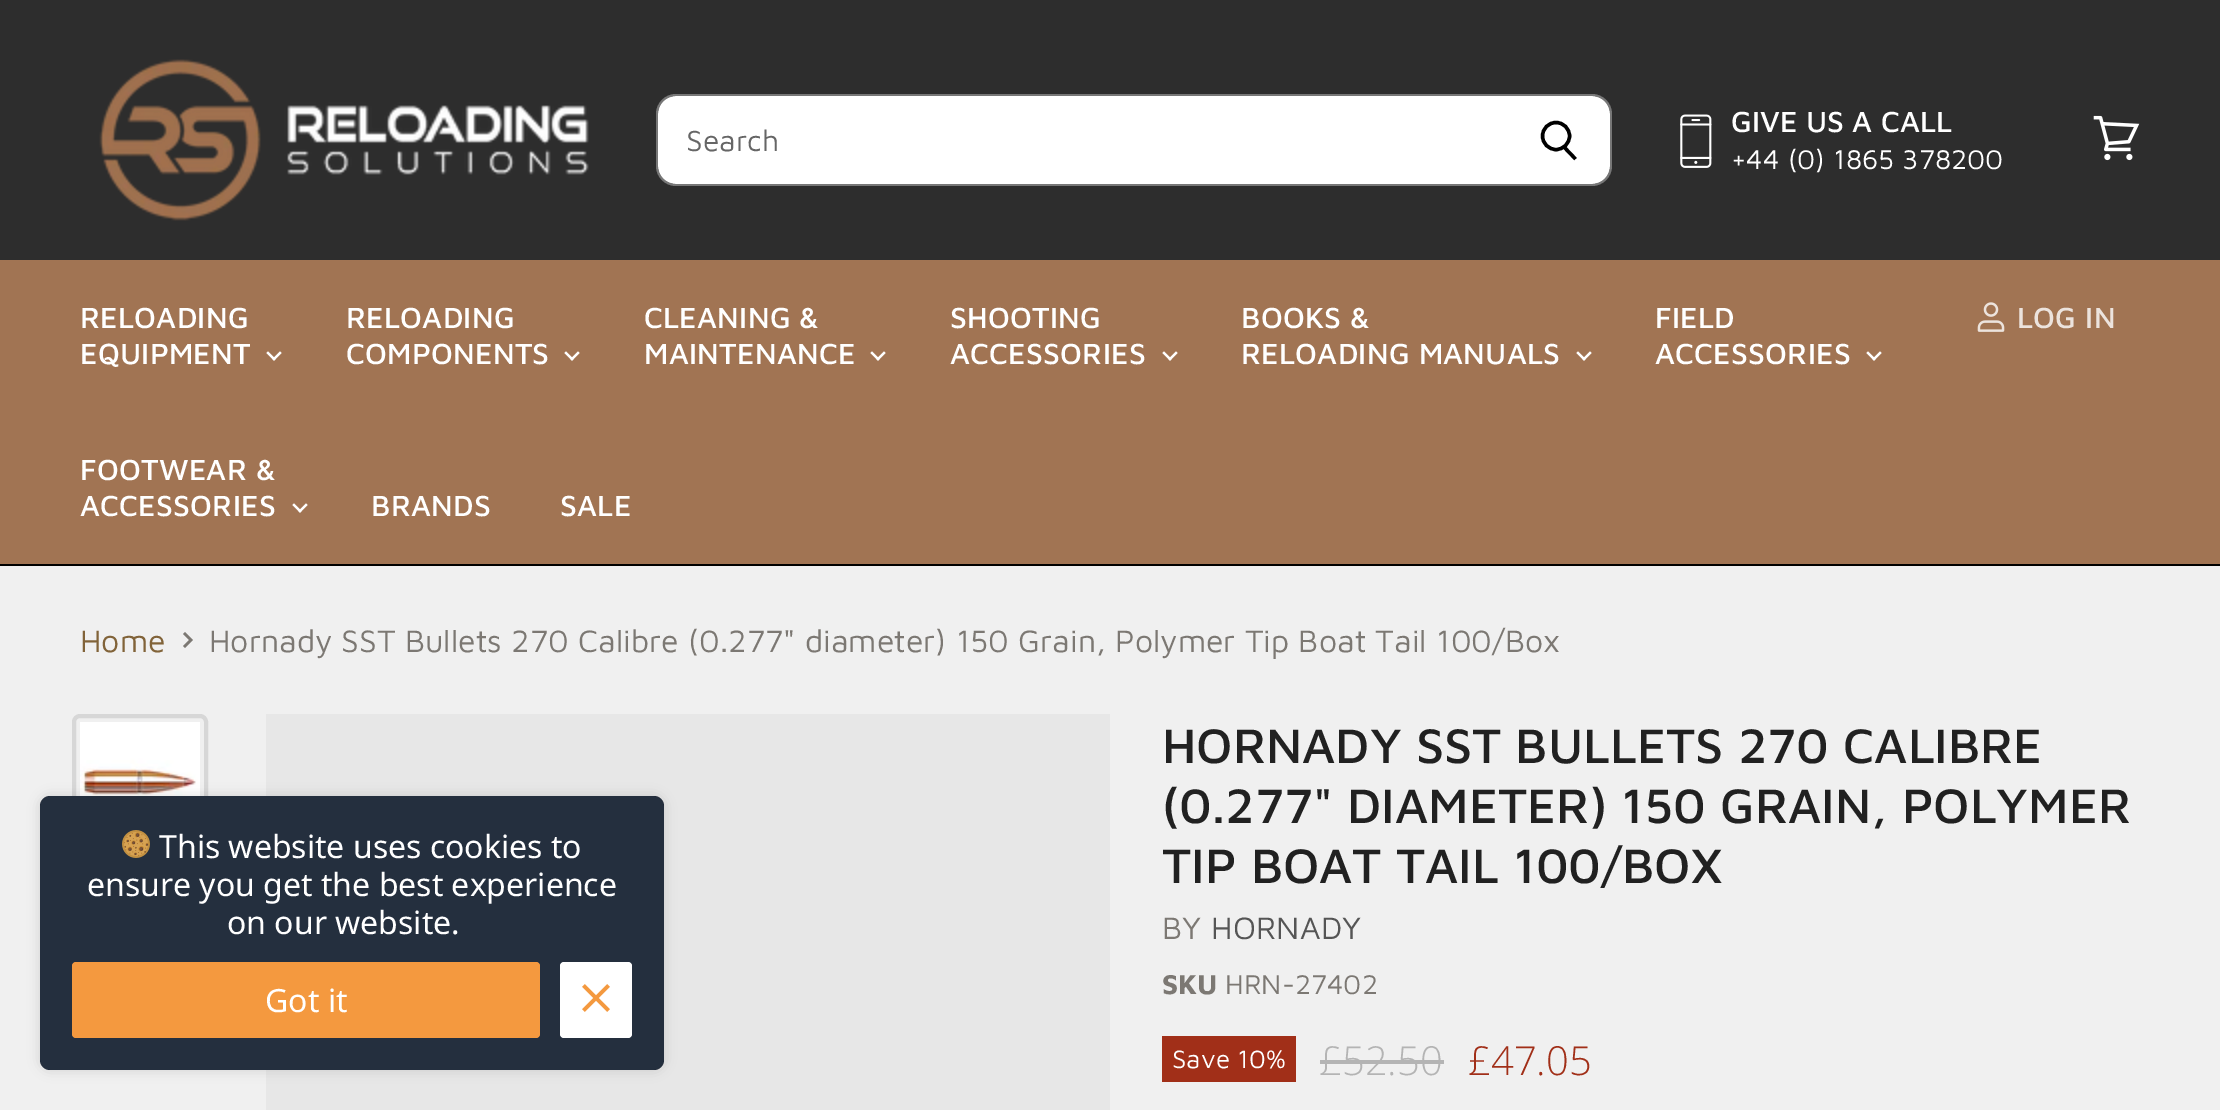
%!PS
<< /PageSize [2220 1110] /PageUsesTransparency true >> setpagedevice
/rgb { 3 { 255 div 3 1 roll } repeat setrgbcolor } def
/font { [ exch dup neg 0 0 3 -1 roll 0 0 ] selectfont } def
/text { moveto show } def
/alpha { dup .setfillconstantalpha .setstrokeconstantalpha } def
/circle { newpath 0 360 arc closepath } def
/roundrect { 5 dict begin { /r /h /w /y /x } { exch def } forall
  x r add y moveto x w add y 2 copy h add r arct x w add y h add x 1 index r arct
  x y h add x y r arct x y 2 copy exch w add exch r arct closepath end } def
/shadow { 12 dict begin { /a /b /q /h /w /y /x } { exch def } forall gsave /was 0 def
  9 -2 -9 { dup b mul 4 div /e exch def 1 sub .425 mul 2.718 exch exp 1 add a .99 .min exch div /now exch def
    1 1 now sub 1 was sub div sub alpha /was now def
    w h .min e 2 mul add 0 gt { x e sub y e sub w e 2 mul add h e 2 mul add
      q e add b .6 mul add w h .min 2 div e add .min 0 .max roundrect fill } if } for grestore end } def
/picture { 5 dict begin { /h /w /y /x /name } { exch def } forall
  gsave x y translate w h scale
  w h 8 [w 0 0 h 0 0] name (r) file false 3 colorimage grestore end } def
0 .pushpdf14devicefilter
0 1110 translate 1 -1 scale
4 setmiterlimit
240 240 240 rgb
0 0 2220 1110 rectfill
45 45 45 rgb
0 0 2220 260 rectfill
0 0 0 rgb
0 564 2220 2 rectfill
(img_01.rgb) 99 59 490 162 picture
255 255 255 rgb
676 96 moveto 830 0 rlineto 0 88 rlineto -830 0 rlineto -10 0 -18 -8 -18 -18 rcurveto 0 -52 rlineto 0 -10 8 -18 18 -18 rcurveto closepath fill
119 119 119 rgb
676 94 moveto 830 0 rlineto 0 92 rlineto -830 0 rlineto -11 0 -20 -9 -20 -20 rcurveto 0 -52 rlineto 0 -11 9 -20 20 -20 rcurveto closepath 676 96 moveto 830 0 rlineto 0 88 rlineto -830 0 rlineto -10 0 -18 -8 -18 -18 rcurveto 0 -52 rlineto 0 -10 8 -18 18 -18 rcurveto closepath eofill
255 255 255 rgb
1506 96 moveto 86 0 rlineto 10 0 18 8 18 18 rcurveto 0 52 rlineto 0 10 -8 18 -18 18 rcurveto -86 0 rlineto closepath fill
119 119 119 rgb
1506 94 moveto 86 0 rlineto 11 0 20 9 20 20 rcurveto 0 52 rlineto 0 11 -9 20 -20 20 rcurveto -86 0 rlineto closepath 1506 96 moveto 86 0 rlineto 10 0 18 8 18 18 rcurveto 0 52 rlineto 0 10 -8 18 -18 18 rcurveto -86 0 rlineto closepath eofill
0 0 0 rgb
3.4 setlinewidth
1575.5 159 moveto -11.5 -12 rlineto stroke
1556 136 13.5 circle stroke
(img_02.rgb) 1680 114 32 54 picture
(img_03.rgb) 2093 115 47 46 picture
161 116 83 rgb
0 260 2220 304 rectfill
(img_04.rgb) 266 351 16 10 picture
(img_04.rgb) 564 351 16 10 picture
(img_04.rgb) 870 351 16 10 picture
(img_04.rgb) 1162 351 16 10 picture
(img_04.rgb) 1576 351 16 10 picture
(img_04.rgb) 1866 351 16 10 picture
(img_04.rgb) 292 503 16 10 picture
(img_05.rgb) 1977 302 28 30 picture
gsave
182.5 648.5 moveto 0 -16 rlineto 10 0 rlineto 0 16 rlineto closepath clip newpath
124 120 115 rgb
2.5 setlinewidth
184 647 moveto 7 -7 rlineto -7 -7 rlineto stroke
grestore
215 215 215 rgb
4 setlinewidth
74 716 132 132 6 roundrect stroke
(img_06.rgb) 80 722 120 74 picture
231 231 231 rgb
266 714 844 396 rectfill
161 47 24 rgb
1162 1036 134 46 rectfill
180 180 180 rgb
1320 1060 124 4 rectfill
36 47 62 rgb
40 796 624 274 10 roundrect fill
gsave
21 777 moveto 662 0 rlineto 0 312 rlineto -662 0 rlineto closepath 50 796 moveto 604 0 rlineto 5.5 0 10 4.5 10 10 rcurveto 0 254 rlineto 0 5.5 -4.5 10 -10 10 rcurveto -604 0 rlineto -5.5 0 -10 -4.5 -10 -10 rcurveto 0 -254 rlineto 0 -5.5 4.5 -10 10 -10 rcurveto closepath eoclip newpath
0 0 0 rgb
40 796 624 274 10 6 0.12 shadow
grestore
(img_07.rgb) 122 830 28 28 picture
244 153 63 rgb
72 962 468 76 4 roundrect fill
255 255 255 rgb
560 962 72 76 4 roundrect fill
(img_08.rgb) 582 984 28 28 picture
/MavenPro-Regular 30 font
102 102 102 rgb
(Search) 686 151 text
/MavenPro-Medium 30 font
255 255 255 rgb
(GIVE US A CALL) 1731 132 text
/MavenPro-Regular 28 font
(+44 \(0\) 1865 378200) 1731 169 text
/MavenPro-Medium 30 font
80 328 moveto 0.25 0 (RELOADING) ashow
80 364 moveto 0.25 0 (EQUIPMENT) ashow
346 328 moveto 0.25 0 (RELOADING) ashow
346 364 moveto 0.25 0 (COMPONENTS) ashow
644 328 moveto 0.25 0 (CLEANING &) ashow
644 364 moveto 0.25 0 (MAINTENANCE) ashow
950 328 moveto 0.25 0 (SHOOTING) ashow
950 364 moveto 0.25 0 (ACCESSORIES) ashow
1241 328 moveto 0.25 0 (BOOKS &) ashow
1241 364 moveto 0.25 0 (RELOADING MANUALS) ashow
1655 328 moveto 0.25 0 (FIELD) ashow
1655 364 moveto 0.25 0 (ACCESSORIES) ashow
80 480 moveto 0.25 0 (FOOTWEAR &) ashow
80 516 moveto 0.25 0 (ACCESSORIES) ashow
371 516 moveto 0.25 0 (BRANDS) ashow
560 516 moveto 0.25 0 (SALE) ashow
236 227 221 rgb
2017 328 moveto 0.25 0 (LOG IN) ashow
/MavenPro-Regular 32 font
129 99 57 rgb
(Home) 80 652 text
124 120 115 rgb
(Hornady SST Bullets 270 Calibre \(0.277" diameter\) 150 Grain, Polymer Tip Boat Tail 100/Box) 209 652 text
/MavenPro-Medium 50 font
33 33 33 rgb
(HORNADY SST BULLETS 270 CALIBRE) 1162 763 text
(\(0.277" DIAMETER\) 150 GRAIN, POLYMER) 1162 823 text
(TIP BOAT TAIL 100/BOX) 1162 883 text
/MavenPro-Regular 32 font
124 120 115 rgb
1162 939 moveto 0.25 0 (BY) ashow
85 85 85 rgb
1211 939 moveto 0.25 0 (HORNADY) ashow
/MavenPro-Bold 28 font
124 120 115 rgb
(SKU) 1162 994 text
/MavenPro-Regular 28 font
(HRN-27402) 1225 994 text
/MavenPro-Regular 26 font
255 255 255 rgb
(Save 10%) 1172 1068 text
/OpenSans-Light 40 font
180 180 180 rgb
(£52.50) 1319 1075 text
161 47 24 rgb
(£47.05) 1468 1075 text
/NotoSans-Regular 32 font
255 255 255 rgb
(This website uses cookies to) 159 858 text
(ensure you get the best experience) 87 896 text
(on our website.) 227 934 text
(Got it) 265 1012 text
.poppdf14devicefilter showpage
